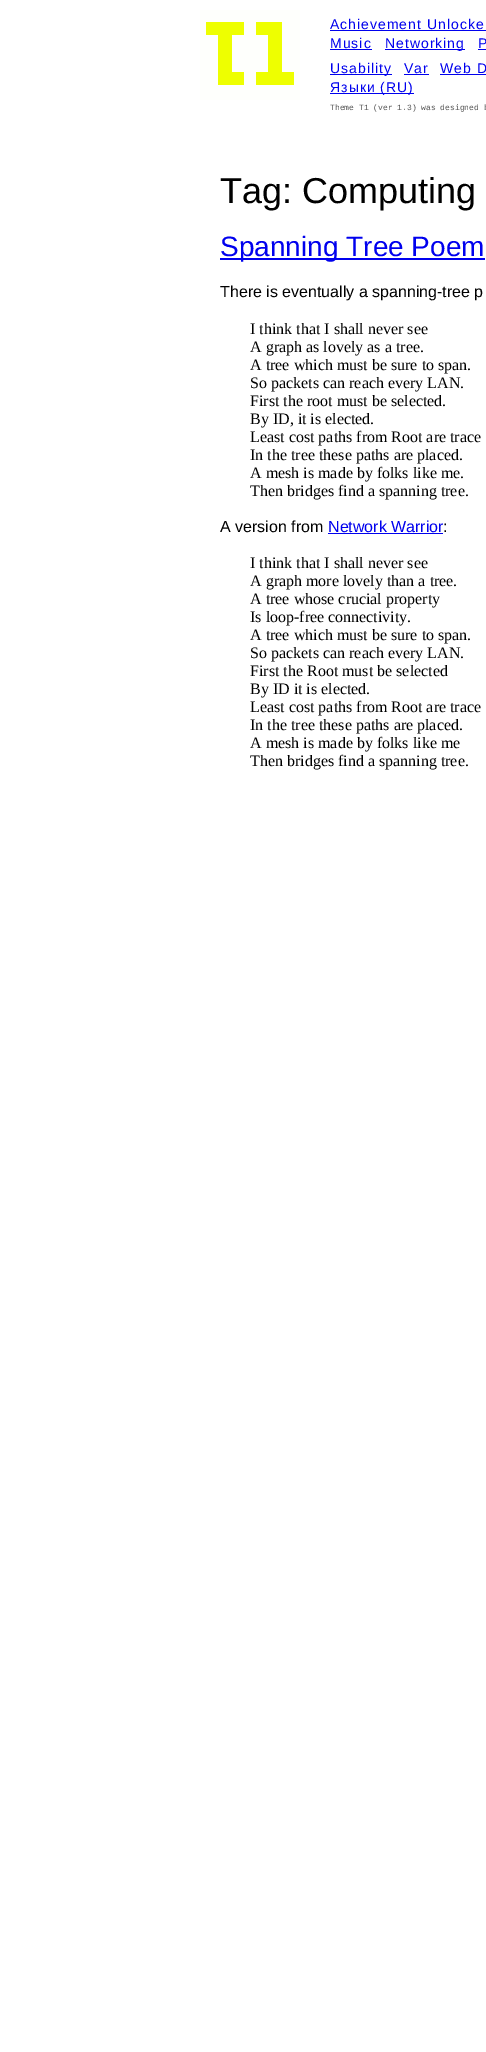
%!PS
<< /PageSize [486 2052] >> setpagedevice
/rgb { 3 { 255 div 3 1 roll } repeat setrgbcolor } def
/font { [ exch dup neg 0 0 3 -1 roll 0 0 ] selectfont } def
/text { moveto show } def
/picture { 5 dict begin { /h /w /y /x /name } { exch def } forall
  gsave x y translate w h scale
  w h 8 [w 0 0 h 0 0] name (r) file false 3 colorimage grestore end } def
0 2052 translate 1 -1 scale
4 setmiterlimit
255 255 255 rgb
0 0 486 2052 rectfill
238 255 0 rgb
206 22 88 63 rectfill
(img_01.rgb) 200 10 100 90 picture
0 0 238 rgb
330 30 156 1 rectfill
330 49 42 1 rectfill
385 49 80 1 rectfill
478 49 8 1 rectfill
330 74 62 1 rectfill
404 74 25 1 rectfill
440 74 46 1 rectfill
330 93 84 1 rectfill
220 258 265 2 rectfill
328 533 115 1 rectfill
/LiberationSans-Regular 14 font
330 29 moveto 1 0 (Achievement Unlocke) ashow
330 48 moveto 1 0 (Music) ashow
385 48 moveto 1 0 (Networking) ashow
478 48 moveto 1 0 (P) ashow
330 73 moveto 1 0 (Usability) ashow
404 73 moveto 1 0 (Var) ashow
440 73 moveto 1 0 (Web D) ashow
330 92 moveto 1 0 (Языки \(RU\)) ashow
/LiberationMono-Regular 8 font
85 85 85 rgb
(Theme T1 \(ver 1.3\) was designed b) 330 110 text
/LiberationSans-Regular 36 font
0 0 0 rgb
(Tag: Computing) 220 203 text
/LiberationSans-Regular 28 font
0 0 238 rgb
(Spanning Tree Poem) 220 256 text
/LiberationSans-Regular 16 font
0 0 0 rgb
(There is eventually a spanning-tree p) 220 297 text
/LiberationSerif-Regular 16 font
(I think that I shall never see) 250 334 text
(A graph as lovely as a tree.) 250 352 text
(A tree which must be sure to span.) 250 370 text
(So packets can reach every LAN.) 250 388 text
(First the root must be selected.) 250 406 text
(By ID, it is elected.) 250 424 text
(Least cost paths from Root are trace) 250 442 text
(In the tree these paths are placed.) 250 460 text
(A mesh is made by folks like me.) 250 478 text
(Then bridges find a spanning tree.) 250 496 text
/LiberationSans-Regular 16 font
(A version from) 220 532 text
0 0 238 rgb
(Network Warrior) 328 532 text
0 0 0 rgb
(:) 443 532 text
/LiberationSerif-Regular 16 font
(I think that I shall never see) 250 568 text
(A graph more lovely than a tree.) 250 586 text
(A tree whose crucial property) 250 604 text
(Is loop-free connectivity.) 250 622 text
(A tree which must be sure to span.) 250 640 text
(So packets can reach every LAN.) 250 658 text
(First the Root must be selected) 250 676 text
(By ID it is elected.) 250 694 text
(Least cost paths from Root are trace) 250 712 text
(In the tree these paths are placed.) 250 730 text
(A mesh is made by folks like me) 250 748 text
(Then bridges find a spanning tree.) 250 766 text
showpage
